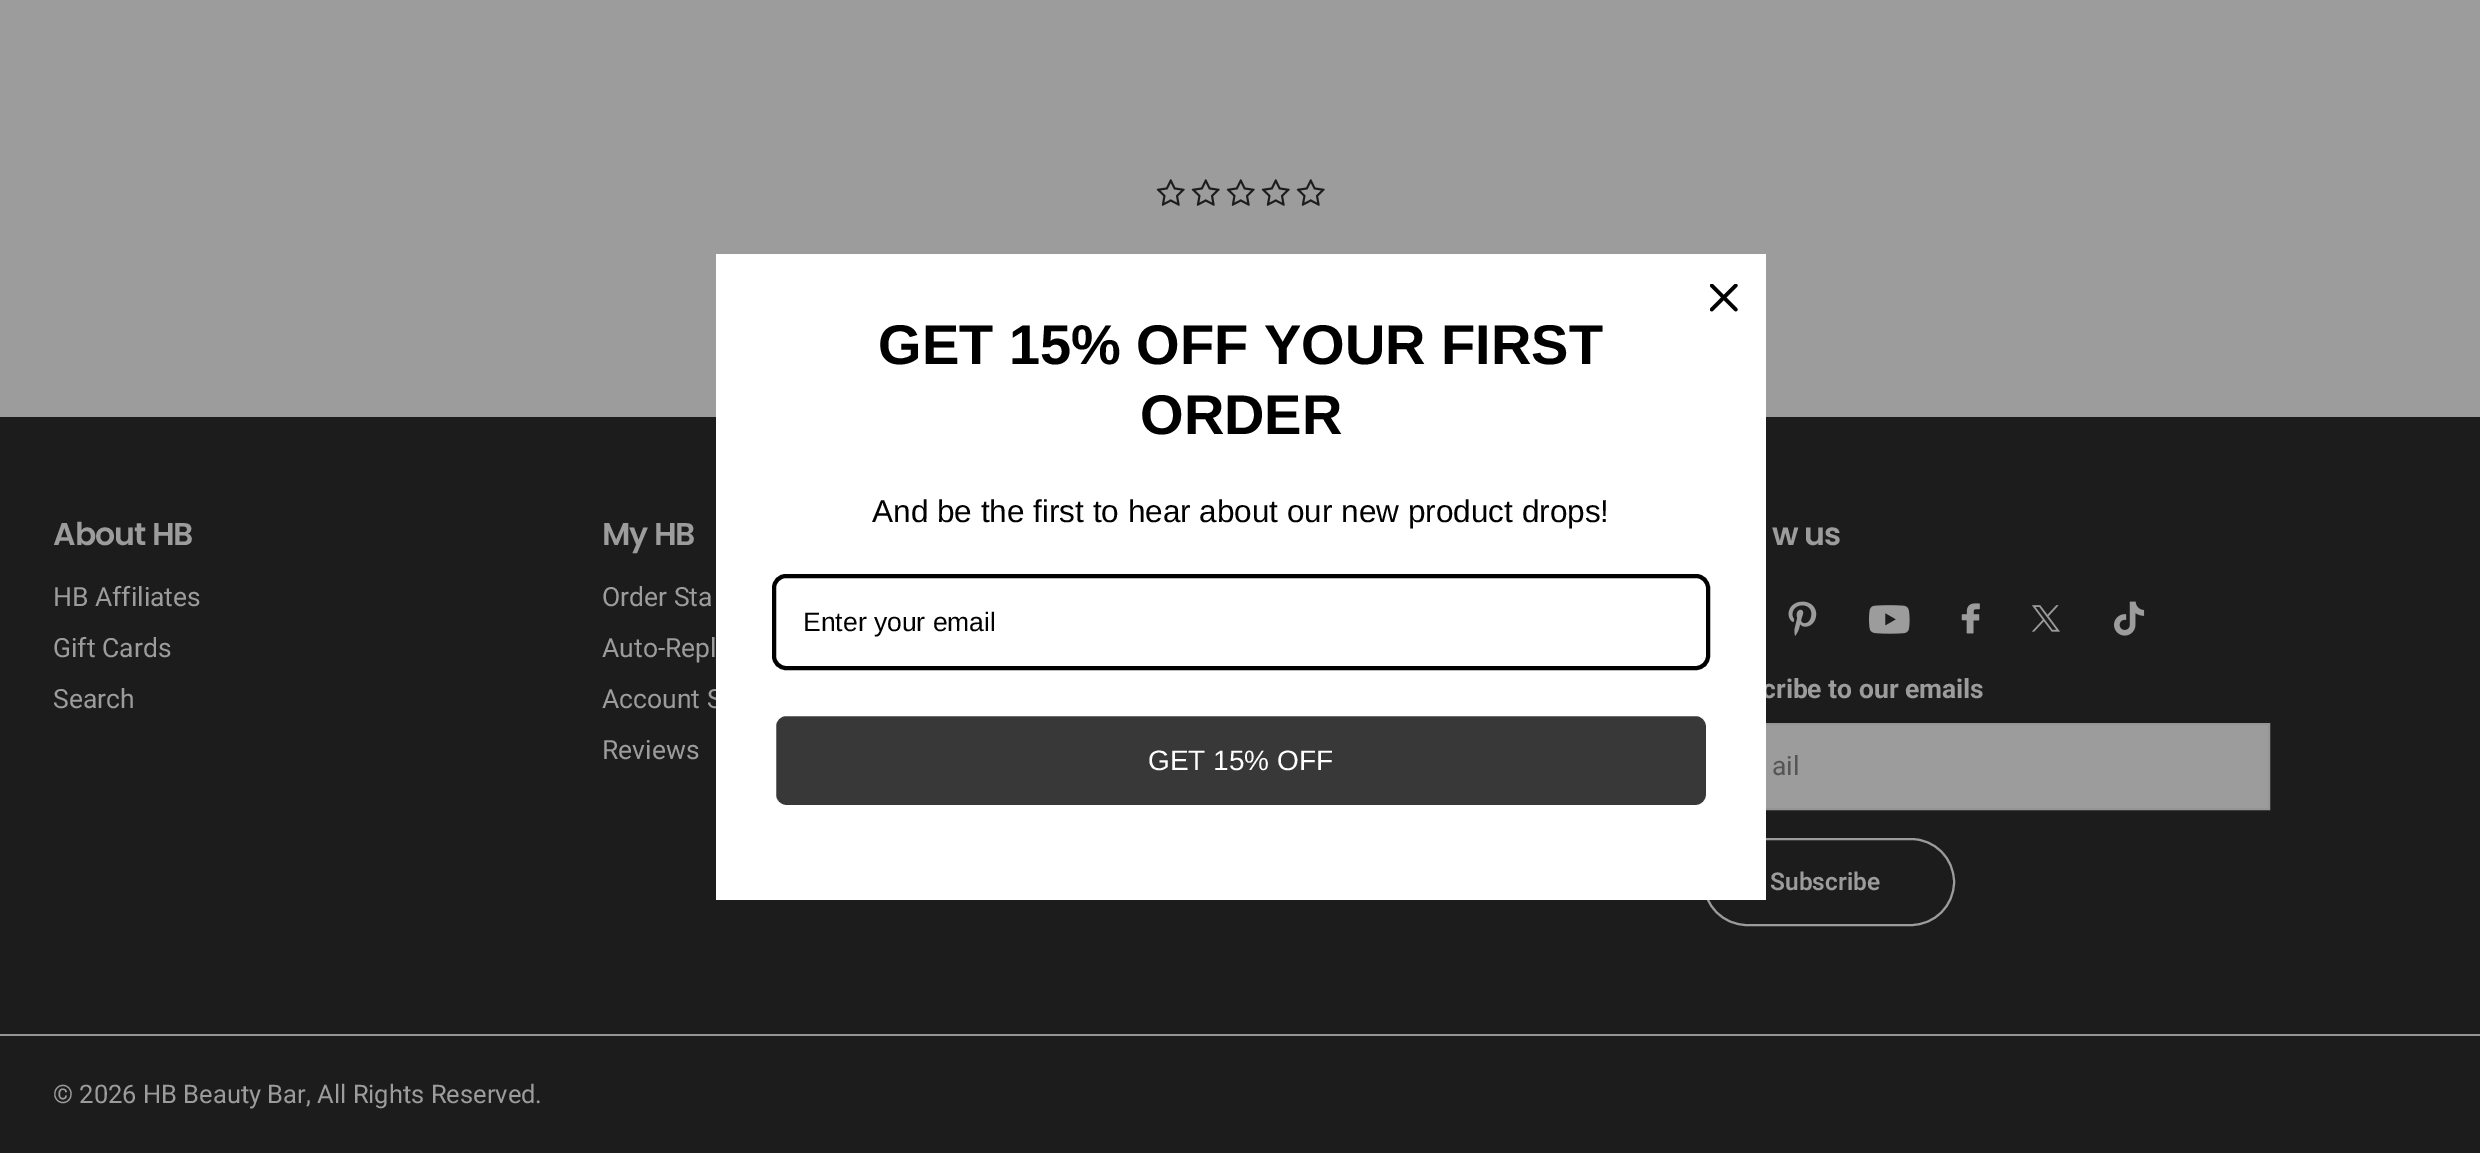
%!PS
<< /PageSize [2480 1153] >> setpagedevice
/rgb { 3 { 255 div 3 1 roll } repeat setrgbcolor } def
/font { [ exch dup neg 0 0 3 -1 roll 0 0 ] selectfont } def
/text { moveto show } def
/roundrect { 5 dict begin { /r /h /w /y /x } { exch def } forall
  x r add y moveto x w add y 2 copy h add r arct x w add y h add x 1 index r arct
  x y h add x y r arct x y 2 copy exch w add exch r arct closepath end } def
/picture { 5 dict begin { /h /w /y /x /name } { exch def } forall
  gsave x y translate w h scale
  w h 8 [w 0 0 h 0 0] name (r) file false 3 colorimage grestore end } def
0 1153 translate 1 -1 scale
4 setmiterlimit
156 156 156 rgb
0 0 2480 1153 rectfill
(img_02.rgb) 1156 179 29 27 picture
(img_02.rgb) 1191 179 29 27 picture
(img_02.rgb) 1226 179 29 27 picture
(img_02.rgb) 1261 179 29 27 picture
(img_02.rgb) 1296 179 29 27 picture
28 28 28 rgb
0 417 2480 736 rectfill
(img_03.rgb) 1788 601 29 35 picture
(img_04.rgb) 1869 605 41 29 picture
(img_05.rgb) 1961 603 19 31 picture
(img_06.rgb) 2031 605 29 27 picture
(img_07.rgb) 2114 601 31 35 picture
156 156 156 rgb
1766 725 502 83 rectfill
149 149 149 rgb
2 setlinewidth
1704 724 565 85 rectstroke
156 156 156 rgb
1704 839 250 86 43 roundrect stroke
149 149 149 rgb
0 1034 2480 2 rectfill
/Poppins-SemiBold 31.5 font
156 156 156 rgb
53 545 moveto -1 0 (About HB) ashow
/Roboto-Regular 26.5 font
(HB Affiliates) 53 606 text
(Gift Cards) 53 657 text
(Search) 53 708 text
/Poppins-SemiBold 31.5 font
602 545 moveto -1 0 (My HB) ashow
/Roboto-Regular 26.5 font
(Order Sta) 602 606 text
(Auto-Repl) 602 657 text
(Account S) 602 708 text
(Reviews) 602 759 text
/Poppins-SemiBold 31.5 font
1772 545 moveto -1 0 (w us) ashow
/Roboto-Bold 26.5 font
(cribe to our emails) 1762 698 text
255 255 255 rgb
716 254 1050 646 rectfill
(img_01.rgb) 1710 284 28 28 picture
56 56 56 rgb
774 714 934 93 12 roundrect gsave fill grestore
255 255 255 rgb
4 setlinewidth
stroke
/LiberationSans-Regular 28 font
(GET 15% OFF) 1148 770 text
0 0 0 rgb
774 576 934 92 12 roundrect stroke
/LiberationSans-Regular 26.5 font
(Enter your email) 803 631 text
/LiberationSans-Regular 31.5 font
(And be the first to hear about our new product drops!) 872 522 text
/LiberationSans-Bold 56 font
(ORDER) 1140 434 text
(GET 15% OFF YOUR FIRST) 878 364 text
/Roboto-Regular 26.5 font
85 85 84 rgb
(ail) 1772 775 text
/Roboto-SemiBold 24.5 font
156 156 156 rgb
(Subscribe) 1770 890 text
/Roboto-Regular 25.5 font
(© 2026 HB Beauty Bar, All Rights Reserved.) 53 1103 text
showpage
